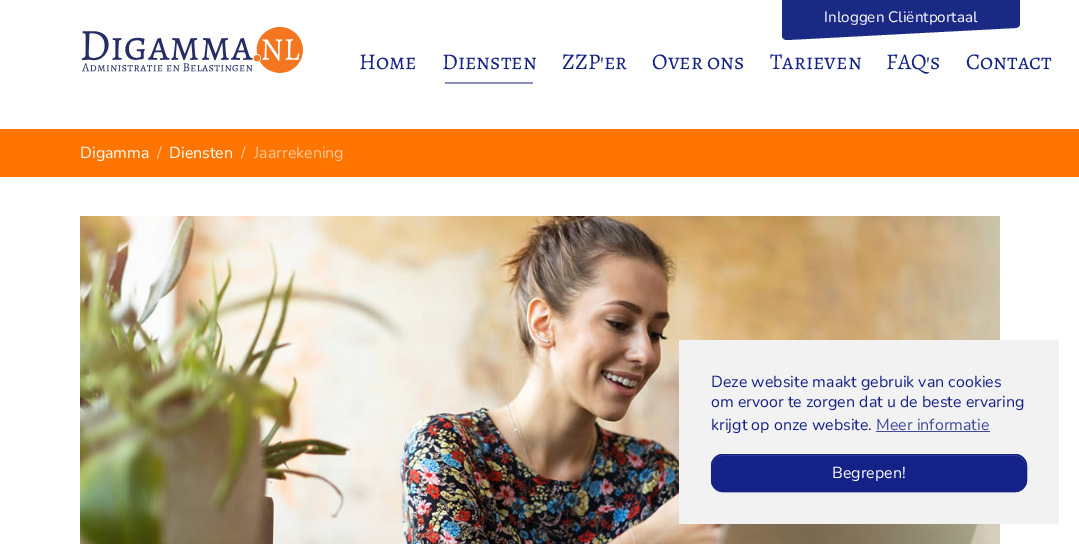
%!PS
<< /PageSize [1079 544] /PageUsesTransparency true >> setpagedevice
/rgb { 3 { 255 div 3 1 roll } repeat setrgbcolor } def
/font { [ exch dup neg 0 0 3 -1 roll 0 0 ] selectfont } def
/text { moveto show } def
/alpha { dup .setfillconstantalpha .setstrokeconstantalpha } def
/roundrect { 5 dict begin { /r /h /w /y /x } { exch def } forall
  x r add y moveto x w add y 2 copy h add r arct x w add y h add x 1 index r arct
  x y h add x y r arct x y 2 copy exch w add exch r arct closepath end } def
/shadow { 12 dict begin { /a /b /q /h /w /y /x } { exch def } forall gsave /was 0 def
  9 -2 -9 { dup b mul 4 div /e exch def 1 sub .425 mul 2.718 exch exp 1 add a .99 .min exch div /now exch def
    1 1 now sub 1 was sub div sub alpha /was now def
    w h .min e 2 mul add 0 gt { x e sub y e sub w e 2 mul add h e 2 mul add
      q e add b .6 mul add w h .min 2 div e add .min 0 .max roundrect fill } if } for grestore end } def
/picture { 5 dict begin { /h /w /y /x /name } { exch def } forall
  gsave x y translate w h scale
  w h 8 [w 0 0 h 0 0] name (r) file false 3 colorimage grestore end } def
0 .pushpdf14devicefilter
0 544 translate 1 -1 scale
4 setmiterlimit
255 255 255 rgb
0 0 1079 544 rectfill
26 41 131 rgb
782 -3 moveto 0 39 rlineto 0 2 2 4 5 4 rcurveto 228 -12 rlineto 3 0 5 -2 5 -4 rcurveto 0 -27 rlineto closepath eofill
(img_01.rgb) 81 27 222 46 picture
138 144 195 rgb
445 82 88 2 rectfill
255 117 0 rgb
0 129 1079 48 rectfill
(img_02.rgb) 80 216 920 328 picture
242 242 242 rgb
679 340 380 184 rectfill
64 75 156 rgb
876 431 114 1 rectfill
0 0 0 rgb
711 455 316 38 12 0.5 0.07 shadow
20 33 135 rgb
711 454 316 38 12 roundrect fill
55 66 153 rgb
723 456 moveto 292 0 rlineto 6 0 11 5 11 11 rcurveto 0 -1 rlineto 0 -6 -5 -11 -11 -11 rcurveto -292 0 rlineto -6 0 -11 5 -11 11 rcurveto 0 1 rlineto 0 -6 5 -11 11 -11 rcurveto closepath fill
20 33 135 rgb
711.5 454.5 315 37 11.5 roundrect stroke
/Nunito-Regular 15.25 font
255 255 255 rgb
(Inloggen Cliëntportaal) 824 22 text
/AlegreyaSC-Regular 22.5 font
20 33 135 rgb
(Home) 359 69 text
(Diensten) 442 69 text
(ZZP'er) 562 69 text
(Over ons) 652 69 text
(Tarieven) 770 69 text
(FAQ's) 886 69 text
(Contact) 966 69 text
/Nunito-Regular 16 font
255 255 255 rgb
(Digamma) 80 158 text
255 200 153 rgb
(/) 157 158 text
255 255 255 rgb
(Diensten) 169 158 text
255 200 153 rgb
(/) 241 158 text
(Jaarrekening) 254 158 text
20 33 135 rgb
(Deze website maakt gebruik van cookies) 711 387 text
(om ervoor te zorgen dat u de beste ervaring) 711 407 text
(krijgt op onze website.) 711 430 text
64 75 156 rgb
(Meer informatie) 876 430 text
255 255 255 rgb
(Begrepen!) 832 478 text
.poppdf14devicefilter showpage
